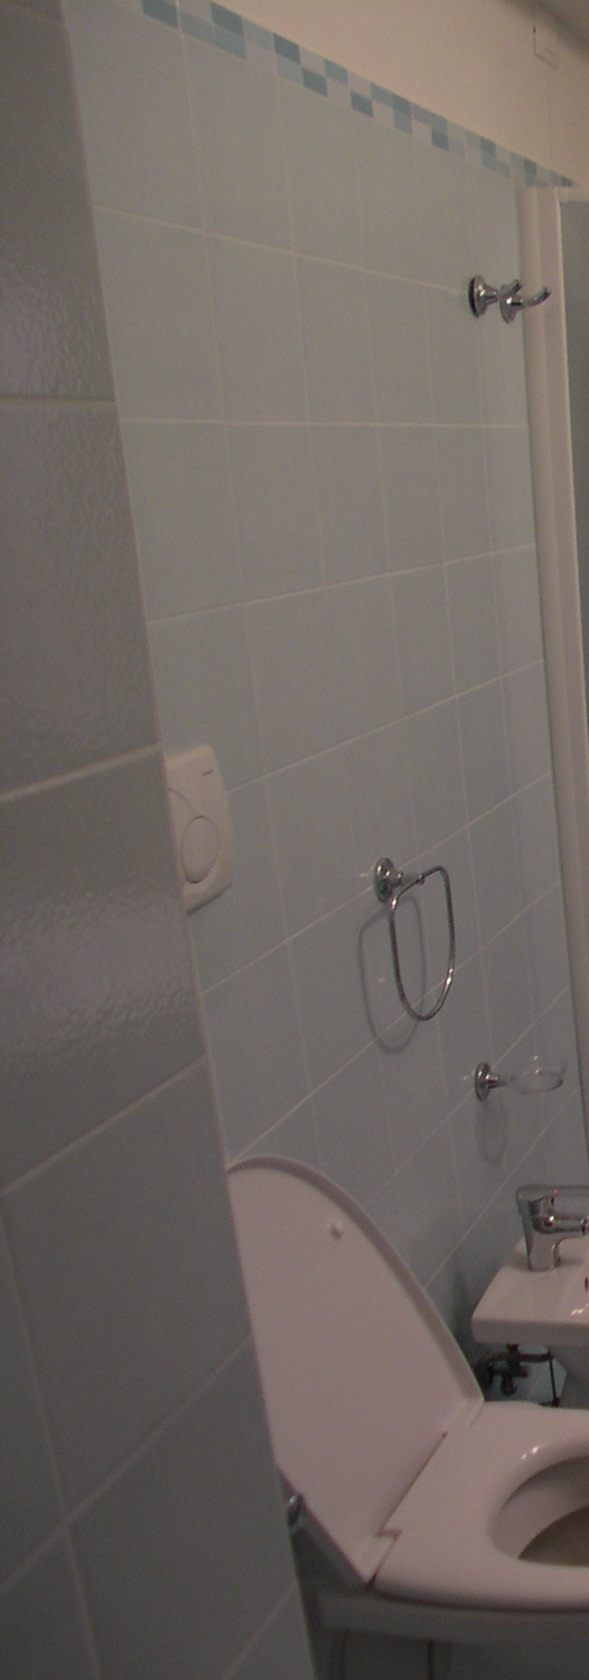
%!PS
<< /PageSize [589 1680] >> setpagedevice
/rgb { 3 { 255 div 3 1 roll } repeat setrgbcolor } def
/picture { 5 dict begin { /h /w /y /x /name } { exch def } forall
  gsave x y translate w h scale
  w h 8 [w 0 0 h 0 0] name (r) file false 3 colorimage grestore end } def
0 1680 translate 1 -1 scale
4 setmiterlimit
255 255 255 rgb
0 0 589 1680 rectfill
(img_01.rgb) 0 0 589 1680 picture
showpage
